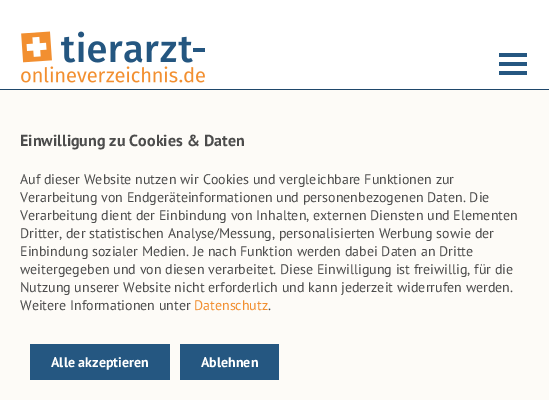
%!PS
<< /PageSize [549 400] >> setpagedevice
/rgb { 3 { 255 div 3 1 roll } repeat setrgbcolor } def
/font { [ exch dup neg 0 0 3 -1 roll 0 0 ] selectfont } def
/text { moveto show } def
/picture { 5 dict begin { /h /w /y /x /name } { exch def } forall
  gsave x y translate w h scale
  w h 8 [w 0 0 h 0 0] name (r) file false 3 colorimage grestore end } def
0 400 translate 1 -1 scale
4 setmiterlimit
255 255 255 rgb
0 0 549 400 rectfill
(img_01.rgb) 21 31 184 52 picture
37 87 129 rgb
499 71 28 4 rectfill
499 53 28 4 rectfill
499 62 28 4 rectfill
253 251 247 rgb
0 90 549 310 rectfill
31 71 107 rgb
0 89 549 1 rectfill
37 87 129 rgb
30 344 140 36 rectfill
180 344 99 36 rectfill
/PTSans-Bold 16 font
76 76 76 rgb
(Einwilligung zu Cookies & Daten) 20 146 text
/PTSans-Regular 14 font
(Auf dieser Website nutzen wir Cookies und vergleichbare Funktionen zur) 20 184 text
(Verarbeitung von Endgeräteinformationen und personenbezogenen Daten. Die) 20 202 text
(Verarbeitung dient der Einbindung von Inhalten, externen Diensten und Elementen) 20 220 text
(Dritter, der statistischen Analyse/Messung, personalisierten Werbung sowie der) 20 238 text
(Einbindung sozialer Medien. Je nach Funktion werden dabei Daten an Dritte) 20 256 text
(weitergegeben und von diesen verarbeitet. Diese Einwilligung ist freiwillig, für die) 20 274 text
(Nutzung unserer Website nicht erforderlich und kann jederzeit widerrufen werden.) 20 292 text
(Weitere Informationen unter) 20 310 text
242 143 48 rgb
(Datenschutz) 194 310 text
76 76 76 rgb
(.) 268 310 text
/PTSans-Bold 14 font
255 255 255 rgb
(Alle akzeptieren) 51 367 text
(Ablehnen) 201 367 text
showpage
